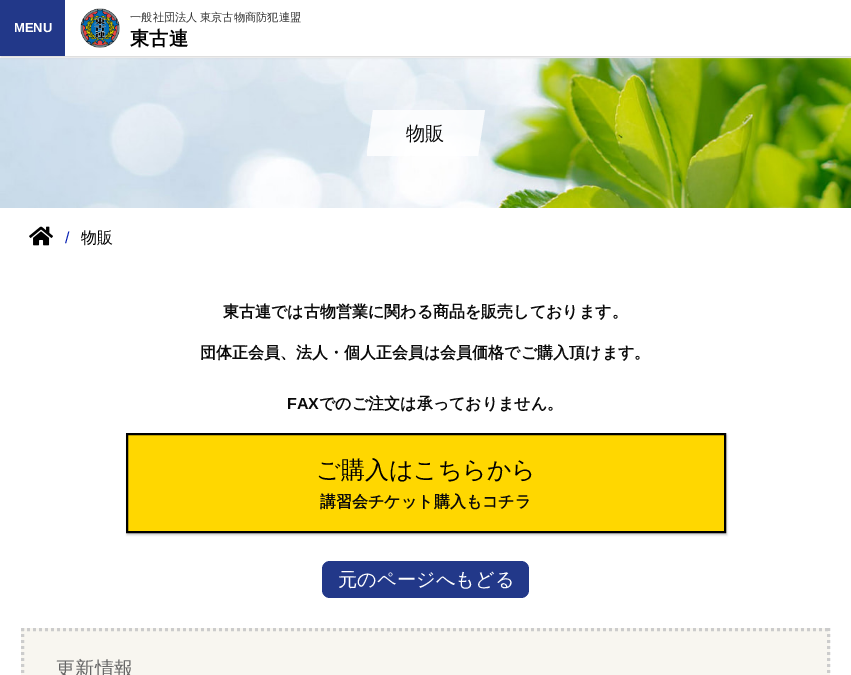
%!PS
<< /PageSize [851 675] /PageUsesTransparency true >> setpagedevice
/rgb { 3 { 255 div 3 1 roll } repeat setrgbcolor } def
/font { [ exch dup neg 0 0 3 -1 roll 0 0 ] selectfont } def
/text { moveto show } def
/alpha { dup .setfillconstantalpha .setstrokeconstantalpha } def
/roundrect { 5 dict begin { /r /h /w /y /x } { exch def } forall
  x r add y moveto x w add y 2 copy h add r arct x w add y h add x 1 index r arct
  x y h add x y r arct x y 2 copy exch w add exch r arct closepath end } def
/shadow { 12 dict begin { /a /b /q /h /w /y /x } { exch def } forall gsave /was 0 def
  9 -2 -9 { dup b mul 4 div /e exch def 1 sub .425 mul 2.718 exch exp 1 add a .99 .min exch div /now exch def
    1 1 now sub 1 was sub div sub alpha /was now def
    w h .min e 2 mul add 0 gt { x e sub y e sub w e 2 mul add h e 2 mul add
      q e add b .6 mul add w h .min 2 div e add .min 0 .max roundrect fill } if } for grestore end } def
/picture { 5 dict begin { /h /w /y /x /name } { exch def } forall
  gsave x y translate w h scale
  w h 8 [w 0 0 h 0 0] name (r) file false 3 colorimage grestore end } def
0 .pushpdf14devicefilter
0 675 translate 1 -1 scale
4 setmiterlimit
255 255 255 rgb
0 0 851 675 rectfill
(img_02.rgb) 0 58 851 150 picture
gsave
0 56 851 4 rectclip
204 204 204 rgb
1 1 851 56 0 1.5 1 shadow
grestore
34 56 137 rgb
0 0 65 56 rectfill
(img_01.rgb) 80 8 40 40 picture
0.8 alpha
255 255 255 rgb
367 152 moveto 6 -42 rlineto 112 0 rlineto -7 46 rlineto -111 0 rlineto closepath fill
1 alpha
(img_03.rgb) 29 226 24 20 picture
204 204 204 rgb
127 435 600 100 0 1 1 shadow
255 215 0 rgb
127 434 moveto 598 0 rlineto 0 98 rlineto -598 0 rlineto closepath gsave fill grestore
0 0 0 rgb
2 setlinewidth
stroke
34 56 137 rgb
322 561 207 37 8 roundrect fill
248 246 240 rgb
21 628 809 47 rectfill
204 204 204 rgb
3 setlinewidth
[3 3] 0 setdash
21 629.5 moveto 809 0 rlineto stroke
828.5 628 moveto 0 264 rlineto stroke
22.5 628 moveto 0 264 rlineto stroke
/LiberationSans-Bold 13 font
255 255 255 rgb
(MENU) 14 32 text
/WenQuanYiZenHei-Medium 11.25 font
51 51 51 rgb
130 21 moveto -1 0 32 (一般社団法人 東京古物商防犯連盟) widthshow
/WenQuanYiZenHei-Bold 19.25 font
0 0 0 rgb
(東古連) 130 45 text
/WenQuanYiZenHei-Medium 19.25 font
10 10 10 rgb
(物販) 406 140 text
/LiberationSans-Regular 16 font
7 32 179 rgb
(/) 65 243 text
/WenQuanYiZenHei-Medium 16 font
0 0 0 rgb
(物販) 81 243 text
/WenQuanYiZenHei-Bold 16 font
10 10 10 rgb
(東古連では古物営業に関わる商品を販売しております。) 223 317 text
(団体正会員、法人・個人正会員は会員価格でご購入頂けます。) 200 358 text
/LiberationSans-Bold 16 font
(FAX) 287 409 text
/WenQuanYiZenHei-Bold 16 font
(でのご注文は承っておりません。) 319 409 text
/WenQuanYiZenHei-Medium 24 font
0 0 0 rgb
(ご購入はこちらから) 316 478 text
/WenQuanYiZenHei-Bold 16 font
10 10 10 rgb
(講習会チケット購入もコチラ) 320 507 text
/WenQuanYiZenHei-Medium 19.25 font
255 255 255 rgb
(元のページへもどる) 338 586 text
102 102 102 rgb
(更新情報) 56 675 text
.poppdf14devicefilter showpage
